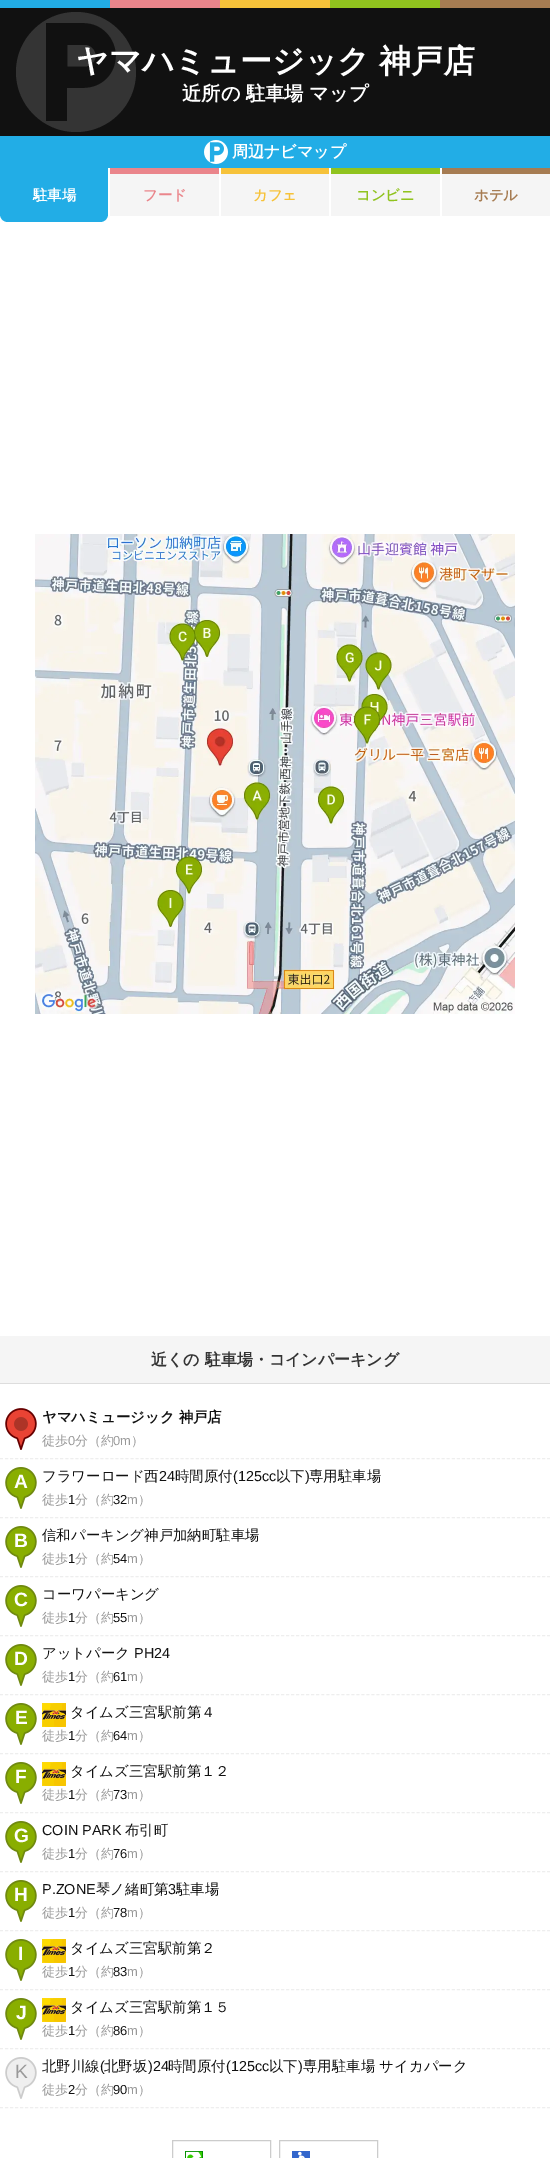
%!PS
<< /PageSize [550 2158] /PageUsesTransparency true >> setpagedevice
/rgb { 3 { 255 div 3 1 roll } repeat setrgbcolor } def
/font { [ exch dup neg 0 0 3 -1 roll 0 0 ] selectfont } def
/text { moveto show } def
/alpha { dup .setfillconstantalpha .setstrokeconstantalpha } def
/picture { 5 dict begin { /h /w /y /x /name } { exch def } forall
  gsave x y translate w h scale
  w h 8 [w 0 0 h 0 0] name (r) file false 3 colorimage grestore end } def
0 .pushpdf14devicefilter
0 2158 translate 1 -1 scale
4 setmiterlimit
255 255 255 rgb
0 0 550 2158 rectfill
34 173 230 rgb
0 0 110 8 rectfill
234 133 139 rgb
110 0 110 8 rectfill
246 194 58 rgb
220 0 110 8 rectfill
144 195 30 rgb
330 0 110 8 rectfill
166 124 82 rgb
440 0 110 8 rectfill
17 17 17 rgb
0 8 550 128 rectfill
34 173 230 rgb
0 136 550 32 rectfill
(img_01.rgb) 204 140 24 24 picture
0 168 moveto 108 0 rlineto 0 46 rlineto 0 4.5 -3.5 8 -8 8 rcurveto -92 0 rlineto -4.5 0 -8 -3.5 -8 -8 rcurveto closepath fill
245 245 245 rgb
110 174 109 42 rectfill
234 133 139 rgb
110 168 109 6 rectfill
245 245 245 rgb
221 174 108 42 rectfill
246 194 58 rgb
221 168 108 6 rectfill
245 245 245 rgb
331 174 109 42 rectfill
144 195 30 rgb
331 168 109 6 rectfill
245 245 245 rgb
442 174 108 42 rectfill
166 124 82 rgb
442 168 108 6 rectfill
(img_02.rgb) 35 534 480 480 picture
245 245 245 rgb
0 1336 550 47 rectfill
221 221 221 rgb
0 1383 550 1 rectfill
238 238 238 rgb
[3 2.02] 0 setdash
0 1458.5 moveto 550 0 rlineto stroke
(img_03.rgb) 5 1408 32 42 picture
0 1517.5 moveto 550 0 rlineto stroke
(img_04.rgb) 5 1467 32 42 picture
0 1576.5 moveto 550 0 rlineto stroke
(img_04.rgb) 5 1526 32 42 picture
0 1635.5 moveto 550 0 rlineto stroke
(img_04.rgb) 5 1585 32 42 picture
0 1694.5 moveto 550 0 rlineto stroke
(img_04.rgb) 5 1644 32 42 picture
0 1753.5 moveto 550 0 rlineto stroke
(img_04.rgb) 5 1703 32 42 picture
(img_05.rgb) 42 1703 24 24 picture
0 1812.5 moveto 550 0 rlineto stroke
(img_04.rgb) 5 1762 32 42 picture
(img_05.rgb) 42 1762 24 24 picture
0 1871.5 moveto 550 0 rlineto stroke
(img_04.rgb) 5 1821 32 42 picture
0 1930.5 moveto 550 0 rlineto stroke
(img_04.rgb) 5 1880 32 42 picture
0 1989.5 moveto 550 0 rlineto stroke
(img_04.rgb) 5 1939 32 42 picture
(img_05.rgb) 42 1939 24 24 picture
0 2048.5 moveto 550 0 rlineto stroke
(img_04.rgb) 5 1998 32 42 picture
(img_05.rgb) 42 1998 24 24 picture
0 2107.5 moveto 550 0 rlineto stroke
(img_06.rgb) 5 2057 32 42 picture
204 204 204 rgb
[] 0 setdash
172.5 2140.5 98 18 rectstroke
(img_07.rgb) 185 2151 18 7 picture
279.5 2140.5 98 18 rectstroke
(img_08.rgb) 292 2151 18 7 picture
/WenQuanYiZenHei-Bold 32 font
255 255 255 rgb
76 72 moveto -1 0 32 (ヤマハミュージック 神戸店) widthshow
0.15 alpha
76 12 moveto -33 0 -60 27 -60 60 rcurveto 0 33 27 60 60 60 rcurveto 33 0 60 -27 60 -60 rcurveto 0 -33 -27 -60 -60 -60 rcurveto closepath 84 88 moveto -17 0 rlineto 0 33 rlineto -21 0 rlineto 0 -98 rlineto 38 0 rlineto 18 0 32 15 32 33 rcurveto 0 18 -14 32 -32 32 rcurveto closepath fill
84.5 45 moveto -17 0 rlineto 0 21.5 rlineto 17 0 rlineto 6 0 11 -5 11 -10.5 rcurveto 0 -6 -5 -11 -11 -11 rcurveto closepath fill
/WenQuanYiZenHei-Bold 19.25 font
1 alpha
(近所の 駐車場 マップ) 182 100 text
/WenQuanYiZenHei-Bold 16 font
(周辺ナビマップ) 232 157 text
/WenQuanYiZenHei-Bold 14.4 font
(駐車場) 33 200 text
234 133 139 rgb
(フード) 143 200 text
246 194 58 rgb
(カフェ) 253 200 text
144 195 30 rgb
(コンビニ) 356 200 text
166 124 82 rgb
(ホテル) 474 200 text
/WenQuanYiZenHei-Bold 16 font
51 51 51 rgb
(近くの 駐車場・コインパーキング) 151 1365 text
/WenQuanYiZenHei-Bold 14.4 font
17 17 17 rgb
(ヤマハミュージック 神戸店) 42 1422 text
/WenQuanYiZenHei-Medium 13 font
153 153 153 rgb
(徒歩) 42 1445 text
/LiberationSans-Regular 13 font
(0) 68 1445 text
/WenQuanYiZenHei-Medium 13 font
(分（約) 75 1445 text
/LiberationSans-Regular 13 font
(0m) 113 1445 text
/WenQuanYiZenHei-Medium 13 font
(）) 131 1445 text
/LiberationSans-Bold 19.25 font
255 255 255 rgb
(A) 14 1488 text
/WenQuanYiZenHei-Medium 14.4 font
17 17 17 rgb
(フラワーロード西) 42 1481 text
/LiberationSans-Regular 14.4 font
(24) 159 1481 text
/WenQuanYiZenHei-Medium 14.4 font
(時間原付) 175 1481 text
/LiberationSans-Regular 14.4 font
(\(125cc) 233 1481 text
/WenQuanYiZenHei-Medium 14.4 font
(以下) 276 1481 text
/LiberationSans-Regular 14.4 font
(\)) 305 1481 text
/WenQuanYiZenHei-Medium 14.4 font
(専用駐車場) 309 1481 text
/WenQuanYiZenHei-Medium 13 font
153 153 153 rgb
(徒歩) 42 1504 text
/LiberationSans-Regular 13 font
17 17 17 rgb
(1) 68 1504 text
/WenQuanYiZenHei-Medium 13 font
153 153 153 rgb
(分（約) 75 1504 text
/LiberationSans-Regular 13 font
17 17 17 rgb
(32) 113 1504 text
153 153 153 rgb
(m) 127 1504 text
/WenQuanYiZenHei-Medium 13 font
(）) 138 1504 text
/LiberationSans-Bold 19.25 font
255 255 255 rgb
(B) 14 1547 text
/WenQuanYiZenHei-Medium 14.4 font
17 17 17 rgb
(信和パーキング神戸加納町駐車場) 42 1540 text
/WenQuanYiZenHei-Medium 13 font
153 153 153 rgb
(徒歩) 42 1563 text
/LiberationSans-Regular 13 font
17 17 17 rgb
(1) 68 1563 text
/WenQuanYiZenHei-Medium 13 font
153 153 153 rgb
(分（約) 75 1563 text
/LiberationSans-Regular 13 font
17 17 17 rgb
(54) 113 1563 text
153 153 153 rgb
(m) 127 1563 text
/WenQuanYiZenHei-Medium 13 font
(）) 138 1563 text
/LiberationSans-Bold 19.25 font
255 255 255 rgb
(C) 14 1606 text
/WenQuanYiZenHei-Medium 14.4 font
17 17 17 rgb
(コーワパーキング) 42 1599 text
/WenQuanYiZenHei-Medium 13 font
153 153 153 rgb
(徒歩) 42 1622 text
/LiberationSans-Regular 13 font
17 17 17 rgb
(1) 68 1622 text
/WenQuanYiZenHei-Medium 13 font
153 153 153 rgb
(分（約) 75 1622 text
/LiberationSans-Regular 13 font
17 17 17 rgb
(55) 113 1622 text
153 153 153 rgb
(m) 127 1622 text
/WenQuanYiZenHei-Medium 13 font
(）) 138 1622 text
/LiberationSans-Bold 19.25 font
255 255 255 rgb
(D) 14 1665 text
/WenQuanYiZenHei-Medium 14.4 font
17 17 17 rgb
(アットパーク) 42 1658 text
/LiberationSans-Regular 14.4 font
(PH24) 134 1658 text
/WenQuanYiZenHei-Medium 13 font
153 153 153 rgb
(徒歩) 42 1681 text
/LiberationSans-Regular 13 font
17 17 17 rgb
(1) 68 1681 text
/WenQuanYiZenHei-Medium 13 font
153 153 153 rgb
(分（約) 75 1681 text
/LiberationSans-Regular 13 font
17 17 17 rgb
(61) 113 1681 text
153 153 153 rgb
(m) 127 1681 text
/WenQuanYiZenHei-Medium 13 font
(）) 138 1681 text
/LiberationSans-Bold 19.25 font
255 255 255 rgb
(E) 15 1724 text
/WenQuanYiZenHei-Medium 14.4 font
17 17 17 rgb
(タイムズ三宮駅前第４) 70 1717 text
/WenQuanYiZenHei-Medium 13 font
153 153 153 rgb
(徒歩) 42 1740 text
/LiberationSans-Regular 13 font
17 17 17 rgb
(1) 68 1740 text
/WenQuanYiZenHei-Medium 13 font
153 153 153 rgb
(分（約) 75 1740 text
/LiberationSans-Regular 13 font
17 17 17 rgb
(64) 113 1740 text
153 153 153 rgb
(m) 127 1740 text
/WenQuanYiZenHei-Medium 13 font
(）) 138 1740 text
/LiberationSans-Bold 19.25 font
255 255 255 rgb
(F) 15 1783 text
/WenQuanYiZenHei-Medium 14.4 font
17 17 17 rgb
(タイムズ三宮駅前第１２) 70 1776 text
/WenQuanYiZenHei-Medium 13 font
153 153 153 rgb
(徒歩) 42 1799 text
/LiberationSans-Regular 13 font
17 17 17 rgb
(1) 68 1799 text
/WenQuanYiZenHei-Medium 13 font
153 153 153 rgb
(分（約) 75 1799 text
/LiberationSans-Regular 13 font
17 17 17 rgb
(73) 113 1799 text
153 153 153 rgb
(m) 127 1799 text
/WenQuanYiZenHei-Medium 13 font
(）) 138 1799 text
/LiberationSans-Bold 19.25 font
255 255 255 rgb
(G) 14 1842 text
/LiberationSans-Regular 14.4 font
17 17 17 rgb
(COIN PARK) 42 1835 text
/WenQuanYiZenHei-Medium 14.4 font
(布引町) 125 1835 text
/WenQuanYiZenHei-Medium 13 font
153 153 153 rgb
(徒歩) 42 1858 text
/LiberationSans-Regular 13 font
17 17 17 rgb
(1) 68 1858 text
/WenQuanYiZenHei-Medium 13 font
153 153 153 rgb
(分（約) 75 1858 text
/LiberationSans-Regular 13 font
17 17 17 rgb
(76) 113 1858 text
153 153 153 rgb
(m) 127 1858 text
/WenQuanYiZenHei-Medium 13 font
(）) 138 1858 text
/LiberationSans-Bold 19.25 font
255 255 255 rgb
(H) 14 1901 text
/LiberationSans-Regular 14.4 font
17 17 17 rgb
(P.ZONE) 42 1894 text
/WenQuanYiZenHei-Medium 14.4 font
(琴ノ緒町第) 96 1894 text
/LiberationSans-Regular 14.4 font
(3) 168 1894 text
/WenQuanYiZenHei-Medium 14.4 font
(駐車場) 176 1894 text
/WenQuanYiZenHei-Medium 13 font
153 153 153 rgb
(徒歩) 42 1917 text
/LiberationSans-Regular 13 font
17 17 17 rgb
(1) 68 1917 text
/WenQuanYiZenHei-Medium 13 font
153 153 153 rgb
(分（約) 75 1917 text
/LiberationSans-Regular 13 font
17 17 17 rgb
(78) 113 1917 text
153 153 153 rgb
(m) 127 1917 text
/WenQuanYiZenHei-Medium 13 font
(）) 138 1917 text
/LiberationSans-Bold 19.25 font
255 255 255 rgb
(I) 18 1960 text
/WenQuanYiZenHei-Medium 14.4 font
17 17 17 rgb
(タイムズ三宮駅前第２) 70 1953 text
/WenQuanYiZenHei-Medium 13 font
153 153 153 rgb
(徒歩) 42 1976 text
/LiberationSans-Regular 13 font
17 17 17 rgb
(1) 68 1976 text
/WenQuanYiZenHei-Medium 13 font
153 153 153 rgb
(分（約) 75 1976 text
/LiberationSans-Regular 13 font
17 17 17 rgb
(83) 113 1976 text
153 153 153 rgb
(m) 127 1976 text
/WenQuanYiZenHei-Medium 13 font
(）) 138 1976 text
/LiberationSans-Bold 19.25 font
255 255 255 rgb
(J) 16 2019 text
/WenQuanYiZenHei-Medium 14.4 font
17 17 17 rgb
(タイムズ三宮駅前第１５) 70 2012 text
/WenQuanYiZenHei-Medium 13 font
153 153 153 rgb
(徒歩) 42 2035 text
/LiberationSans-Regular 13 font
17 17 17 rgb
(1) 68 2035 text
/WenQuanYiZenHei-Medium 13 font
153 153 153 rgb
(分（約) 75 2035 text
/LiberationSans-Regular 13 font
17 17 17 rgb
(86) 113 2035 text
153 153 153 rgb
(m) 127 2035 text
/WenQuanYiZenHei-Medium 13 font
(）) 138 2035 text
/LiberationSans-Regular 19.25 font
(K) 15 2078 text
/WenQuanYiZenHei-Medium 14.4 font
17 17 17 rgb
(北野川線) 42 2071 text
/LiberationSans-Regular 14.4 font
(\() 100 2071 text
/WenQuanYiZenHei-Medium 14.4 font
(北野坂) 104 2071 text
/LiberationSans-Regular 14.4 font
(\)24) 148 2071 text
/WenQuanYiZenHei-Medium 14.4 font
(時間原付) 168 2071 text
/LiberationSans-Regular 14.4 font
(\(125cc) 226 2071 text
/WenQuanYiZenHei-Medium 14.4 font
(以下) 269 2071 text
/LiberationSans-Regular 14.4 font
(\)) 298 2071 text
/WenQuanYiZenHei-Medium 14.4 font
(専用駐車場 サイカパーク) 303 2071 text
/WenQuanYiZenHei-Medium 13 font
153 153 153 rgb
(徒歩) 42 2094 text
/LiberationSans-Regular 13 font
17 17 17 rgb
(2) 68 2094 text
/WenQuanYiZenHei-Medium 13 font
153 153 153 rgb
(分（約) 75 2094 text
/LiberationSans-Regular 13 font
17 17 17 rgb
(90) 113 2094 text
153 153 153 rgb
(m) 127 2094 text
/WenQuanYiZenHei-Medium 13 font
(）) 138 2094 text
.poppdf14devicefilter showpage
